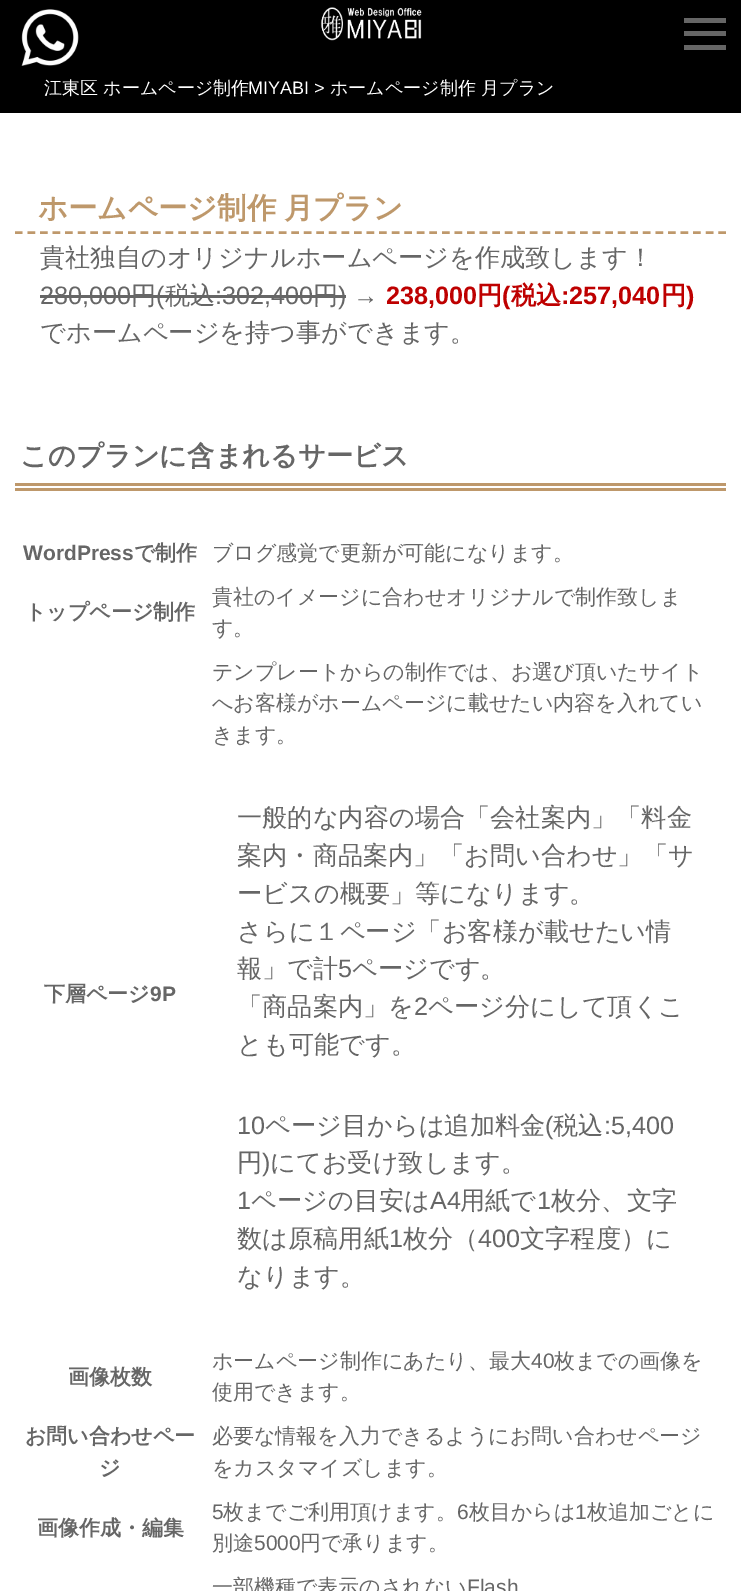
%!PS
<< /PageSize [741 1591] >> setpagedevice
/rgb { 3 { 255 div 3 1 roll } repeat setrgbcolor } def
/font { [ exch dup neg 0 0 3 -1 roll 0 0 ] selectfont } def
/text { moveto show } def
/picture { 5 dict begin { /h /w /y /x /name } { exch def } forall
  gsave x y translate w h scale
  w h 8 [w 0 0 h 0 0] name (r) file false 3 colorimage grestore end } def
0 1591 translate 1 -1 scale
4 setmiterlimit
255 255 255 rgb
0 0 741 1591 rectfill
0 0 0 rgb
0 0 741 113 rectfill
(img_01.rgb) 21 9 58 57 picture
(img_02.rgb) 320 7 102 34 picture
102 102 102 rgb
684 18 42 5 rectfill
684 31 42 5 rectfill
684 45 42 5 rectfill
190 152 107 rgb
2.5 setlinewidth
[7.5 5.06] 0 setdash
15 232.5 moveto 711 0 rlineto stroke
102 102 102 rgb
40 295 306 3 rectfill
190 152 107 rgb
15 483 711 3 rectfill
15 488 711 3 rectfill
/WenQuanYiZenHei-Medium 18 font
255 255 255 rgb
(江東区 ホームページ制作) 44 94 text
/LiberationSans-Regular 18 font
(MIYABI >) 248 94 text
/WenQuanYiZenHei-Medium 18 font
(ホームページ制作 月プラン) 330 94 text
/WenQuanYiZenHei-Bold 29.4 font
190 152 107 rgb
38 218 moveto -1 0 32 (ホームページ制作 月プラン) widthshow
/WenQuanYiZenHei-Medium 25.2 font
102 102 102 rgb
(貴社独自のオリジナルホームページを作成致します！) 40 266 text
/LiberationSans-Regular 25.2 font
(280,000) 40 304 text
/WenQuanYiZenHei-Medium 25.2 font
(円) 131 304 text
/LiberationSans-Regular 25.2 font
(\() 156 304 text
/WenQuanYiZenHei-Medium 25.2 font
(税込) 165 304 text
/LiberationSans-Regular 25.2 font
(:302,400) 215 304 text
/WenQuanYiZenHei-Medium 25.2 font
(円) 313 304 text
/LiberationSans-Regular 25.2 font
(\) →) 338 304 text
/LiberationSans-Bold 25.2 font
190 0 0 rgb
(238,000) 386 304 text
/WenQuanYiZenHei-Bold 25.2 font
(円) 477 304 text
/LiberationSans-Bold 25.2 font
(\() 502 304 text
/WenQuanYiZenHei-Bold 25.2 font
(税込) 511 304 text
/LiberationSans-Bold 25.2 font
(:257,040) 561 304 text
/WenQuanYiZenHei-Bold 25.2 font
(円) 661 304 text
/LiberationSans-Bold 25.2 font
(\)) 686 304 text
/WenQuanYiZenHei-Medium 25.2 font
102 102 102 rgb
(でホームページを持つ事ができます。) 40 341 text
/WenQuanYiZenHei-Bold 27.25 font
(このプランに含まれるサービス) 20 465 text
/LiberationSans-Bold 21 font
(WordPress) 23 560 text
/WenQuanYiZenHei-Bold 21 font
(で制作) 134 560 text
/WenQuanYiZenHei-Medium 21 font
(ブログ感覚で更新が可能になります。) 212 560 text
/WenQuanYiZenHei-Bold 21 font
(トップページ制作) 25 619 text
/WenQuanYiZenHei-Medium 21 font
(貴社のイメージに合わせオリジナルで制作致しま) 212 604 text
(す。) 212 635 text
/WenQuanYiZenHei-Bold 21 font
(下層ページ) 44 1001 text
/LiberationSans-Bold 21 font
(9P) 150 1001 text
/WenQuanYiZenHei-Medium 21 font
(テンプレートからの制作では、お選び頂いたサイト) 212 679 text
(へお客様がホームページに載せたい内容を入れてい) 212 710 text
(きます。) 212 742 text
/WenQuanYiZenHei-Medium 25.2 font
(一般的な内容の場合「会社案内」「料金) 237 826 text
(案内・商品案内」「お問い合わせ」「サ) 237 864 text
(ービスの概要」等になります。) 237 902 text
(さらに１ページ「お客様が載せたい情) 237 940 text
(報」で計) 237 977 text
/LiberationSans-Regular 25.2 font
(5) 338 977 text
/WenQuanYiZenHei-Medium 25.2 font
(ページです。) 352 977 text
(「商品案内」を) 237 1015 text
/LiberationSans-Regular 25.2 font
(2) 414 1015 text
/WenQuanYiZenHei-Medium 25.2 font
(ページ分にして頂くこ) 428 1015 text
(とも可能です。) 237 1053 text
/LiberationSans-Regular 25.2 font
(10) 237 1134 text
/WenQuanYiZenHei-Medium 25.2 font
(ページ目からは追加料金) 265 1134 text
/LiberationSans-Regular 25.2 font
(\() 545 1134 text
/WenQuanYiZenHei-Medium 25.2 font
(税込) 553 1134 text
/LiberationSans-Regular 25.2 font
(:5,400) 604 1134 text
/WenQuanYiZenHei-Medium 25.2 font
(円) 237 1171 text
/LiberationSans-Regular 25.2 font
(\)) 262 1171 text
/WenQuanYiZenHei-Medium 25.2 font
(にてお受け致します。) 270 1171 text
/LiberationSans-Regular 25.2 font
(1) 237 1209 text
/WenQuanYiZenHei-Medium 25.2 font
(ページの目安は) 251 1209 text
/LiberationSans-Regular 25.2 font
(A4) 430 1209 text
/WenQuanYiZenHei-Medium 25.2 font
(用紙で) 460 1209 text
/LiberationSans-Regular 25.2 font
(1) 537 1209 text
/WenQuanYiZenHei-Medium 25.2 font
(枚分、文字) 551 1209 text
(数は原稿用紙) 237 1247 text
/LiberationSans-Regular 25.2 font
(1) 389 1247 text
/WenQuanYiZenHei-Medium 25.2 font
(枚分（) 403 1247 text
/LiberationSans-Regular 25.2 font
(400) 478 1247 text
/WenQuanYiZenHei-Medium 25.2 font
(文字程度）に) 520 1247 text
(なります。) 237 1285 text
/WenQuanYiZenHei-Bold 21 font
(画像枚数) 68 1384 text
/WenQuanYiZenHei-Medium 21 font
(ホームページ制作にあたり、最大) 212 1368 text
/LiberationSans-Regular 21 font
(40) 531 1368 text
/WenQuanYiZenHei-Medium 21 font
(枚までの画像を) 554 1368 text
(使用できます。) 212 1399 text
/WenQuanYiZenHei-Bold 21 font
(お問い合わせペー) 25 1443 text
(ジ) 99 1475 text
/WenQuanYiZenHei-Medium 21 font
(必要な情報を入力できるようにお問い合わせページ) 212 1443 text
(をカスタマイズします。) 212 1475 text
/WenQuanYiZenHei-Bold 21 font
(画像作成・編集) 37 1535 text
/LiberationSans-Regular 21 font
(5) 212 1519 text
/WenQuanYiZenHei-Medium 21 font
(枚までご利用頂けます。) 223 1519 text
/LiberationSans-Regular 21 font
(6) 457 1519 text
/WenQuanYiZenHei-Medium 21 font
(枚目からは) 469 1519 text
/LiberationSans-Regular 21 font
(1) 575 1519 text
/WenQuanYiZenHei-Medium 21 font
(枚追加ごとに) 587 1519 text
(別途) 212 1550 text
/LiberationSans-Regular 21 font
(5000) 254 1550 text
/WenQuanYiZenHei-Medium 21 font
(円で承ります。) 300 1550 text
(一部機種で表示のされない) 212 1594 text
/LiberationSans-Regular 21 font
(Flash) 467 1594 text
showpage
